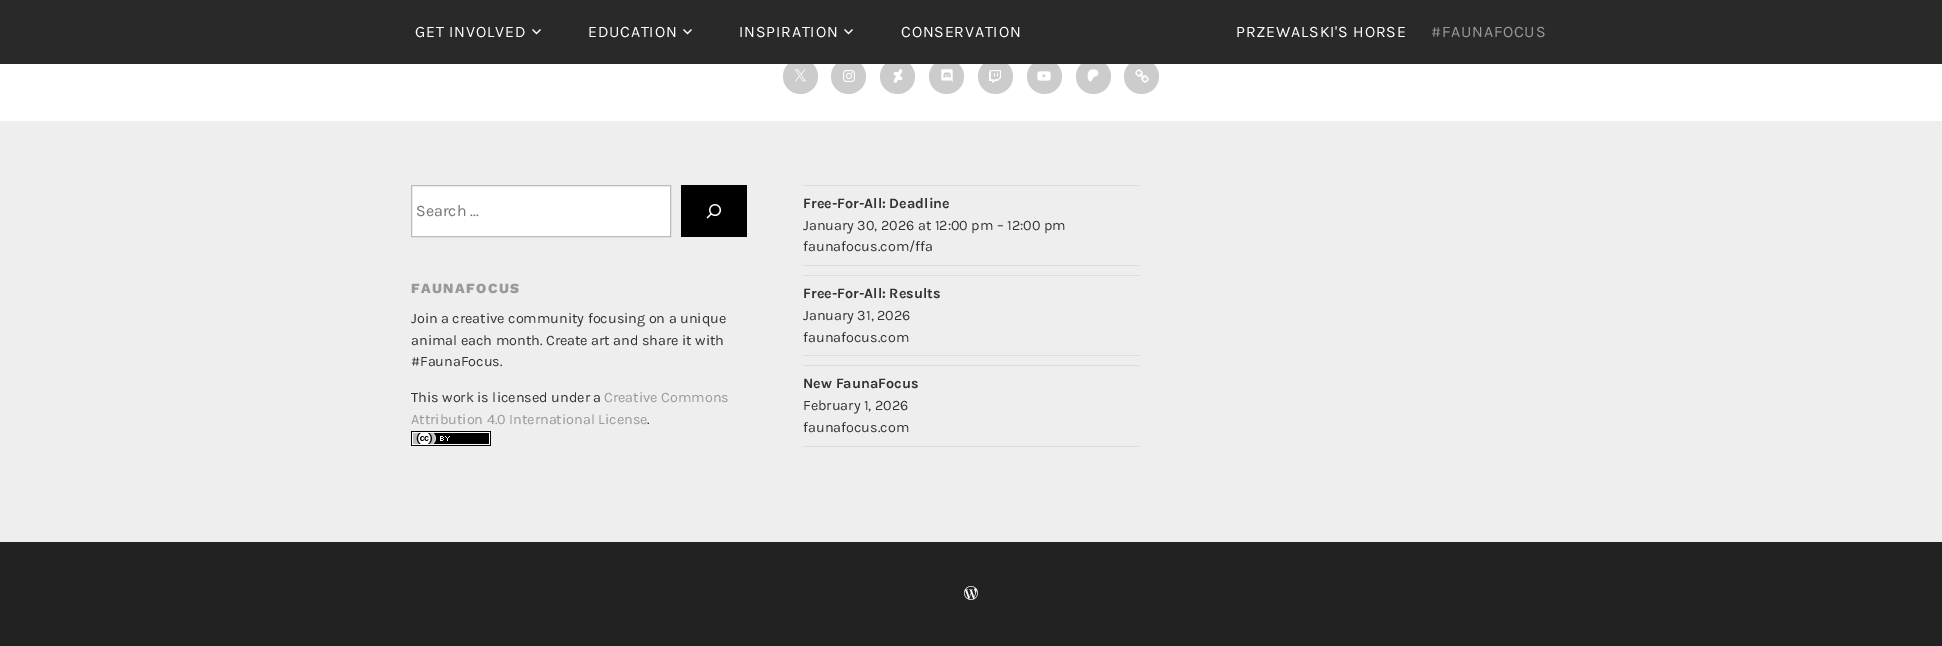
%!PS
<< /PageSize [1942 646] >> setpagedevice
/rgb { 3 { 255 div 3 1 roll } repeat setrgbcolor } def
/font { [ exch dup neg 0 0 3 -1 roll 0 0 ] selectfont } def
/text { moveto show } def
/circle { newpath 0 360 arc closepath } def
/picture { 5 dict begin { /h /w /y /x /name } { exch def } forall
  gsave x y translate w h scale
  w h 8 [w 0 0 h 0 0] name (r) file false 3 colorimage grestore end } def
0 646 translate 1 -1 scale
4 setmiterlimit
255 255 255 rgb
0 0 1942 646 rectfill
204 204 204 rgb
800.5 76.5 17.5 circle fill
848.5 76.5 17.5 circle fill
897.5 76.5 17.5 circle fill
946.5 76.5 17.5 circle fill
995.5 76.5 17.5 circle fill
1044.5 76.5 17.5 circle fill
1093.5 76.5 17.5 circle fill
1141.5 76.5 17.5 circle fill
41 41 42 rgb
0 0 1942 64 rectfill
(img_01.rgb) 532 29 9 6 picture
(img_01.rgb) 683 29 9 6 picture
(img_01.rgb) 844 29 9 6 picture
(img_02.rgb) 794 69 12 13 picture
(img_03.rgb) 843 70 12 12 picture
(img_04.rgb) 893 69 10 14 picture
(img_05.rgb) 941 69 12 13 picture
(img_06.rgb) 989 70 12 13 picture
(img_07.rgb) 1037 71 14 10 picture
(img_08.rgb) 1087 69 12 13 picture
(img_09.rgb) 1135 69 14 14 picture
238 238 238 rgb
0 121 1942 421 rectfill
255 255 255 rgb
411.5 185.5 moveto 259 0 rlineto 0 51 rlineto -259 0 rlineto closepath gsave fill grestore
187 187 187 rgb
stroke
0 0 0 rgb
681 185 66 52 rectfill
(img_10.rgb) 706 204 16 15 picture
(img_11.rgb) 411 431 80 15 picture
221 221 221 rgb
803 185 336 1 rectfill
803 265 336 1 rectfill
803 275 336 1 rectfill
803 355 336 1 rectfill
803 365 336 1 rectfill
803 446 336 1 rectfill
34 34 34 rgb
0 542 1942 104 rectfill
(img_12.rgb) 964 586 14 14 picture
/Karla-Regular 16 font
255 255 255 rgb
415 37 moveto 0.75 0 (GET INVOLVED) ashow
588 37 moveto 0.75 0 (EDUCATION) ashow
739 37 moveto 0.75 0 (INSPIRATION) ashow
901 37 moveto 0.75 0 (CONSERVATION) ashow
1236 37 moveto 0.75 0 (PRZEWALSKI'S HORSE) ashow
153 153 153 rgb
1431 37 moveto 0.75 0 (#FAUNAFOCUS) ashow
117 117 117 rgb
(Search ...) 416 216 text
/WorkSans-ExtraBold 14 font
153 153 153 rgb
411 293 moveto 1.4 0 (FAUNAFOCUS) ashow
/Karla-Regular 14.4 font
51 51 51 rgb
(Join a creative community focusing on a unique) 411 323 text
(animal each month. Create art and share it with) 411 345 text
(#FaunaFocus.) 411 366 text
(This work is licensed under a) 411 402 text
153 153 153 rgb
(Creative Commons) 604 402 text
(Attribution 4.0 International License) 411 424 text
51 51 51 rgb
(.) 647 424 text
/Karla-Bold 14.4 font
(Free-For-All: Deadline) 803 208 text
/Karla-Regular 14.4 font
(January 30, 2026 at 12:00 pm – 12:00 pm) 803 230 text
(faunafocus.com/ffa) 803 251 text
/Karla-Bold 14.4 font
(Free-For-All: Results) 803 298 text
/Karla-Regular 14.4 font
(January 31, 2026) 803 320 text
(faunafocus.com) 803 342 text
/Karla-Bold 14.4 font
(New FaunaFocus) 803 388 text
/Karla-Regular 14.4 font
(February 1, 2026) 803 410 text
(faunafocus.com) 803 432 text
showpage
